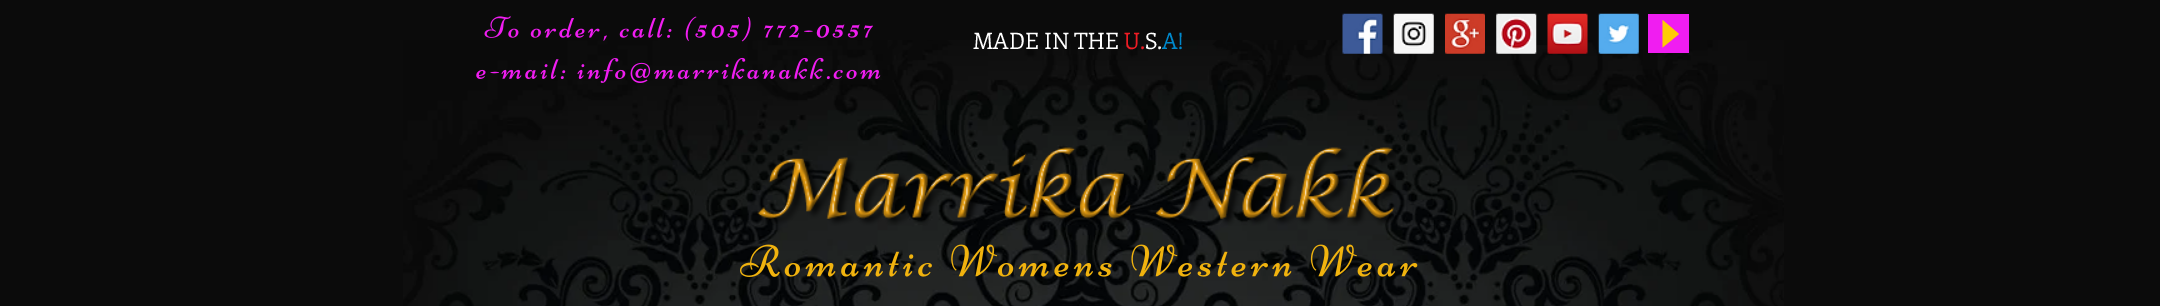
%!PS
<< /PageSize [2160 306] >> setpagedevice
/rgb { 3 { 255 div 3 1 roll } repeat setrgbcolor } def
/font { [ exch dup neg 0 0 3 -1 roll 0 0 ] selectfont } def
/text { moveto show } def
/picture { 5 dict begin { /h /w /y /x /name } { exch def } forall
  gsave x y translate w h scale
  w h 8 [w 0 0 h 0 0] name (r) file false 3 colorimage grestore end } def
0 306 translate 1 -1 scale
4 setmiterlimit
11 11 11 rgb
0 0 2160 306 rectfill
(img_12.rgb) 403 40 1381 266 picture
(img_01.rgb) 484 16 389 26 picture
(img_02.rgb) 476 59 90 21 picture
(img_03.rgb) 577 57 304 26 picture
(img_04.rgb) 1342 13 41 41 picture
(img_05.rgb) 1393 13 41 41 picture
(img_06.rgb) 1445 13 40 41 picture
(img_07.rgb) 1496 13 41 41 picture
(img_08.rgb) 1547 13 41 41 picture
(img_09.rgb) 1598 13 41 41 picture
240 29 241 rgb
1648 14 41 39 rectfill
255 203 5 rgb
1662.5 47.5 moveto 0 -27.5 rlineto 16.5 14 rlineto closepath fill
(img_10.rgb) 757 147 639 79 picture
(img_11.rgb) 740 244 678 33 picture
/Enriqueta-Regular 22.5 font
255 255 255 rgb
(MADE IN THE) 973 49 text
237 28 36 rgb
(U.) 1124 49 text
255 255 255 rgb
(S.) 1145 49 text
0 136 203 rgb
(A!) 1162 49 text
showpage
